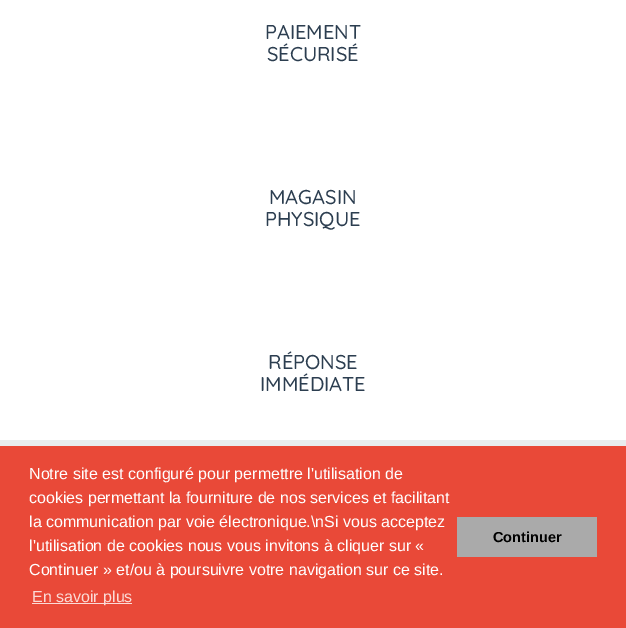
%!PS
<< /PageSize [626 628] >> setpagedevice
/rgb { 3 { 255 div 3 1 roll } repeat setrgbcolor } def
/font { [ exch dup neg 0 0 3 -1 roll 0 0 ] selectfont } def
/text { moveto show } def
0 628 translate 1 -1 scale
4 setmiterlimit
255 255 255 rgb
0 0 626 628 rectfill
233 237 239 rgb
0 440 626 6 rectfill
233 73 56 rgb
0 446 626 182 rectfill
251 219 215 rgb
32 603 100 1 rectfill
170 170 170 rgb
457 517 140 40 rectfill
/Quicksand-Medium 20 font
44 62 80 rgb
(PAIEMENT) 265 39 text
(SÉCURISÉ) 267 61 text
(MAGASIN) 269 204 text
(PHYSIQUE) 265 226 text
(RÉPONSE) 268 369 text
(IMMÉDIATE) 260 391 text
/LiberationSans-Regular 16 font
255 255 255 rgb
(Notre site est configuré pour permettre l'utilisation de) 29 479 text
(cookies permettant la fourniture de nos services et facilitant) 29 503 text
(la communication par voie électronique.\\nSi vous acceptez) 29 527 text
(l'utilisation de cookies nous vous invitons à cliquer sur «) 29 551 text
(Continuer » et/ou à poursuivre votre navigation sur ce site.) 29 575 text
251 219 215 rgb
(En savoir plus) 32 602 text
/LiberationSans-Bold 14.5 font
0 0 0 rgb
(Continuer) 493 542 text
showpage
